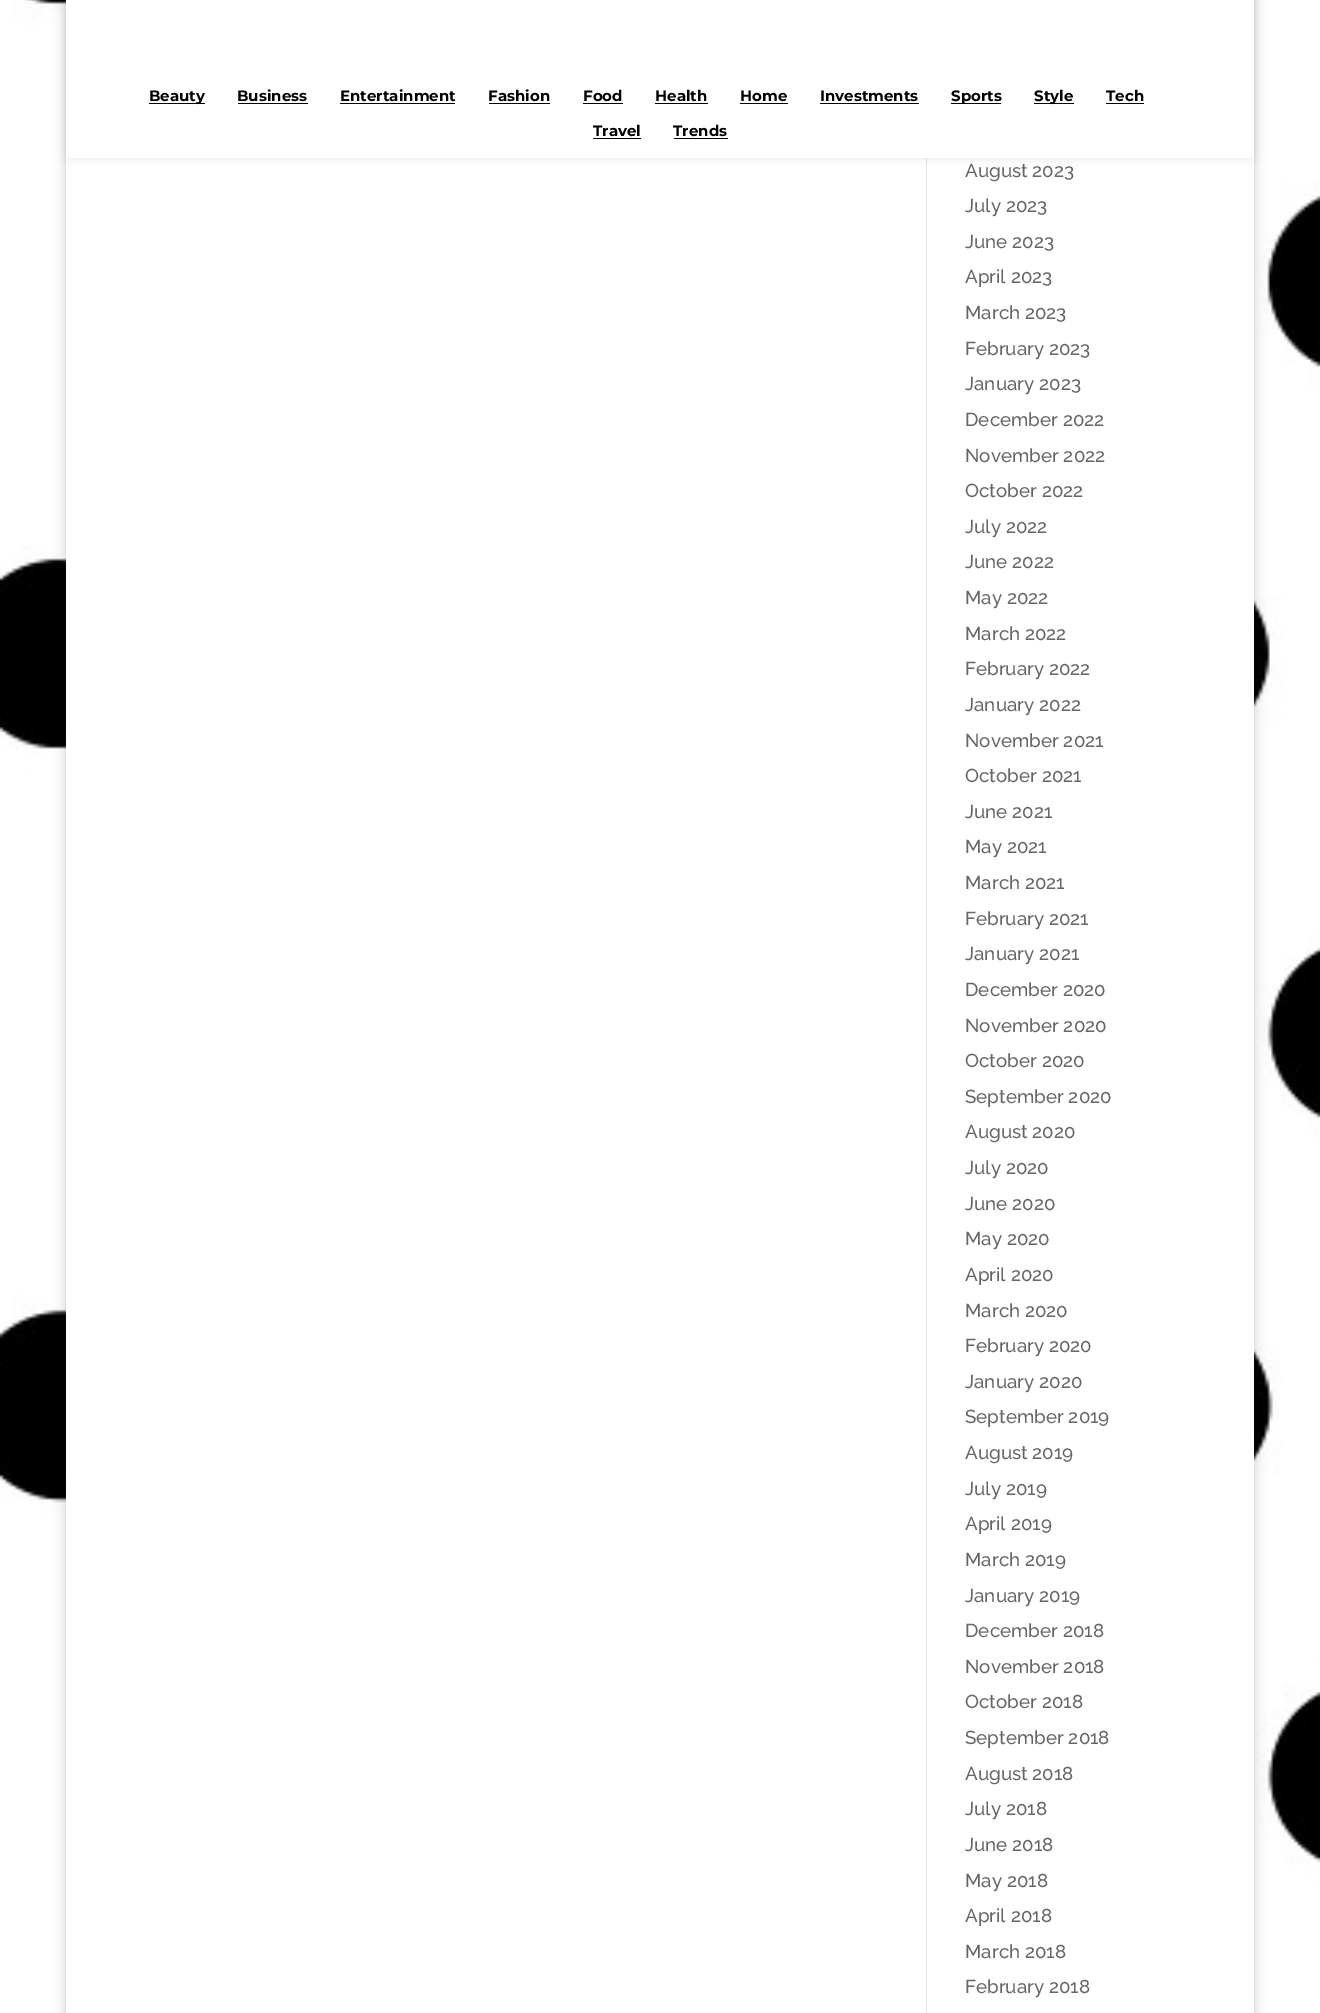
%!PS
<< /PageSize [1320 2013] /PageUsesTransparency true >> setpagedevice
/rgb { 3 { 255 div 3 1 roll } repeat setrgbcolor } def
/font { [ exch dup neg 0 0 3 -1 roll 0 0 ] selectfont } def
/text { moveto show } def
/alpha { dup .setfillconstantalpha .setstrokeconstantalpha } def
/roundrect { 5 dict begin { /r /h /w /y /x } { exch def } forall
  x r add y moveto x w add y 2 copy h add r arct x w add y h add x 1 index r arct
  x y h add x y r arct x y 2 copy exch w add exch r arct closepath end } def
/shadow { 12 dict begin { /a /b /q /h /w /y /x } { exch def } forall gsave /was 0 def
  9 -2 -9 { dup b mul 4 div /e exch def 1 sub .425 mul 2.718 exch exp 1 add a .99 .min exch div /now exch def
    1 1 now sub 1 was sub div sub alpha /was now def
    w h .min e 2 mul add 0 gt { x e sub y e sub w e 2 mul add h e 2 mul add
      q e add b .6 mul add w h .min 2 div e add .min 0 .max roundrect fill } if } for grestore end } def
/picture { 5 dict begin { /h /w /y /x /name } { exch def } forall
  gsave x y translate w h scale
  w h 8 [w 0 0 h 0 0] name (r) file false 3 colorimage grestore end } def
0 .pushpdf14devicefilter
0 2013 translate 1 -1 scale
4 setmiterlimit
255 255 255 rgb
0 0 1320 2013 rectfill
(img_01.rgb) 0 0 1320 1886 picture
0 0 0 rgb
66 -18 1188 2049 0 6 0.2 shadow
255 255 255 rgb
66 158 1188 1855 rectfill
226 226 226 rgb
926 158 1 1855 rectfill
0 0 0 rgb
66 0 1188 158 0 4.5 0.1 shadow
255 255 255 rgb
66 0 1188 158 rectfill
0 0 0 rgb
149 103 56 1 rectfill
238 103 70 1 rectfill
340 103 115 1 rectfill
489 103 61 1 rectfill
583 103 40 1 rectfill
655 103 53 1 rectfill
740 103 48 1 rectfill
820 103 99 1 rectfill
951 103 50 1 rectfill
1034 103 40 1 rectfill
1106 103 38 1 rectfill
593 138 48 1 rectfill
674 138 54 1 rectfill
/Montserrat-Thin 15 font
(Beauty) 149 101 text
(Business) 237 101 text
(Entertainment) 340 101 text
(Fashion) 488 101 text
(Food) 583 101 text
(Health) 655 101 text
(Home) 740 101 text
(Investments) 820 101 text
(Sports) 951 101 text
(Style) 1034 101 text
(Tech) 1106 101 text
(Travel) 593 136 text
(Trends) 673 136 text
/Raleway-Thin 18.75 font
102 102 102 rgb
(August 2023) 965 177 text
(July 2023) 965 212 text
(June 2023) 965 248 text
(April 2023) 965 283 text
(March 2023) 965 319 text
(February 2023) 965 355 text
(January 2023) 965 390 text
(December 2022) 965 426 text
(November 2022) 965 462 text
(October 2022) 965 497 text
(July 2022) 965 533 text
(June 2022) 965 568 text
(May 2022) 965 604 text
(March 2022) 965 640 text
(February 2022) 965 675 text
(January 2022) 965 711 text
(November 2021) 965 747 text
(October 2021) 965 782 text
(June 2021) 965 818 text
(May 2021) 965 853 text
(March 2021) 965 889 text
(February 2021) 965 925 text
(January 2021) 965 960 text
(December 2020) 965 996 text
(November 2020) 965 1032 text
(October 2020) 965 1067 text
(September 2020) 965 1103 text
(August 2020) 965 1138 text
(July 2020) 965 1174 text
(June 2020) 965 1210 text
(May 2020) 965 1245 text
(April 2020) 965 1281 text
(March 2020) 965 1317 text
(February 2020) 965 1352 text
(January 2020) 965 1388 text
(September 2019) 965 1423 text
(August 2019) 965 1459 text
(July 2019) 965 1495 text
(April 2019) 965 1530 text
(March 2019) 965 1566 text
(January 2019) 965 1602 text
(December 2018) 965 1637 text
(November 2018) 965 1673 text
(October 2018) 965 1708 text
(September 2018) 965 1744 text
(August 2018) 965 1780 text
(July 2018) 965 1815 text
(June 2018) 965 1851 text
(May 2018) 965 1887 text
(April 2018) 965 1922 text
(March 2018) 965 1958 text
(February 2018) 965 1993 text
.poppdf14devicefilter showpage
